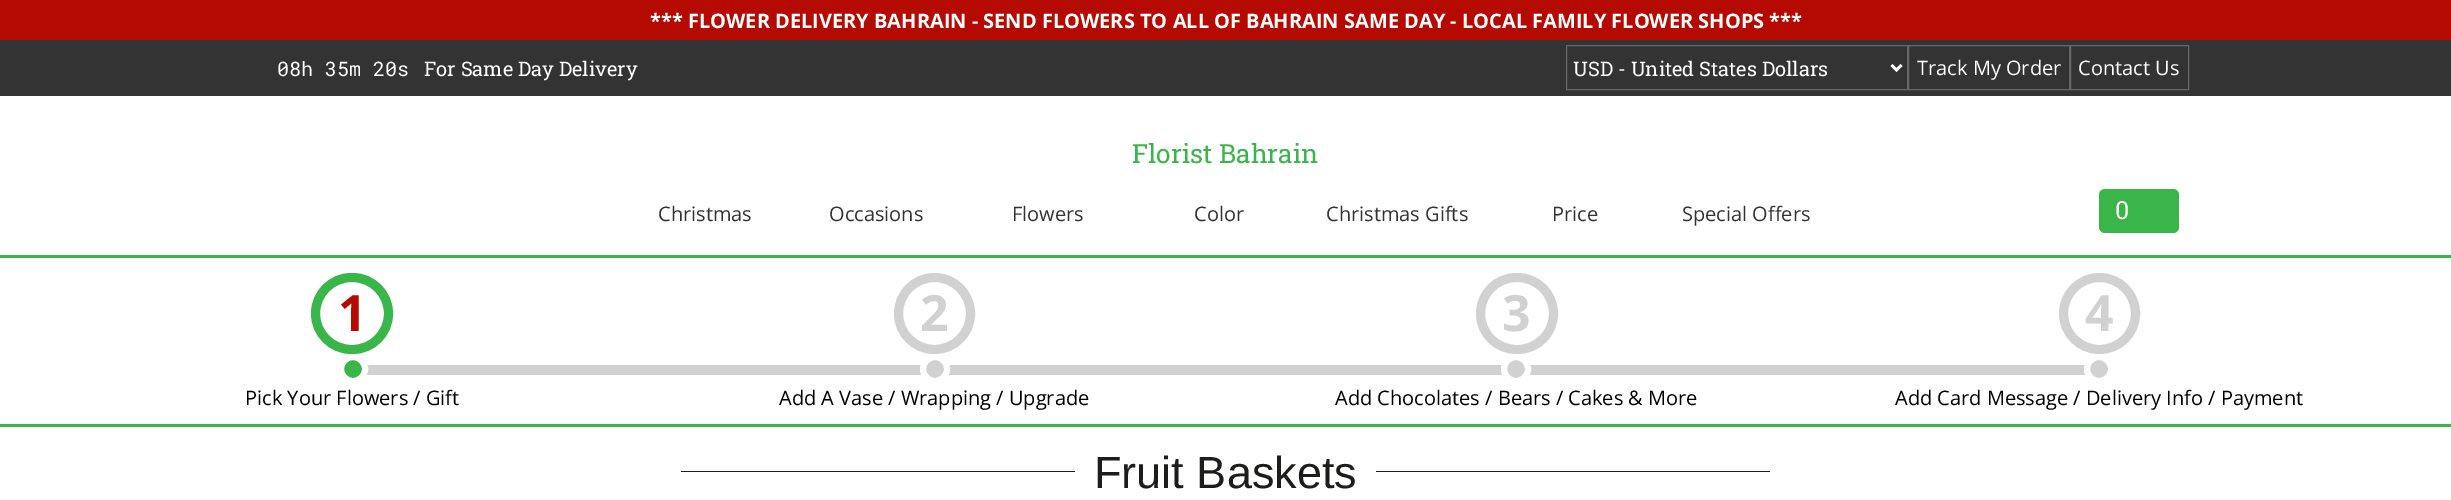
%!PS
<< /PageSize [2451 500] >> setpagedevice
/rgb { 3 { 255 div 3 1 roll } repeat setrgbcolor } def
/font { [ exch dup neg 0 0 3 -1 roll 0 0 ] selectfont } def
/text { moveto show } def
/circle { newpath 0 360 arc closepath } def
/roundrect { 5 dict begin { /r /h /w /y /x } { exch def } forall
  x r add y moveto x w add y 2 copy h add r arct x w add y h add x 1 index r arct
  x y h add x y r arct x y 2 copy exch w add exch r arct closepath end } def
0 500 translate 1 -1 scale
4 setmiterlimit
255 255 255 rgb
0 0 2451 500 rectfill
181 10 1 rgb
0 0 2451 40 rectfill
51 51 51 rgb
0 40 2451 56 rectfill
102 102 102 rgb
1566.5 45.5 341 44 rectstroke
255 255 255 rgb
2.5 setlinewidth
1891.5 65 moveto 5 5 rlineto 5 -5 rlineto stroke
102 102 102 rgb
1 setlinewidth
1908.5 45.5 161 44 rectstroke
2070.5 45.5 118 44 rectstroke
57 181 74 rgb
2099 189 80 44 6 roundrect fill
0 255 2451 3 rectfill
0 424 2451 3 rectfill
9 setlinewidth
315.5 277.5 73 72 36 roundrect stroke
209 209 209 rgb
366 365 556 10 rectfill
57 181 74 rgb
353 369 12 circle gsave fill grestore
255 255 255 rgb
6 setlinewidth
stroke
209 209 209 rgb
9 setlinewidth
934.5 313.5 36 circle stroke
948 365 555 10 rectfill
935 369 12 circle gsave fill grestore
255 255 255 rgb
6 setlinewidth
stroke
209 209 209 rgb
9 setlinewidth
1480.5 277.5 73 72 36 roundrect stroke
1529 365 557 10 rectfill
1516 369 12 circle gsave fill grestore
255 255 255 rgb
6 setlinewidth
stroke
209 209 209 rgb
9 setlinewidth
2099.5 313.5 36 circle stroke
2099 369 12 circle gsave fill grestore
255 255 255 rgb
6 setlinewidth
stroke
29 29 27 rgb
681 471 394 1 rectfill
1376 471 394 1 rectfill
/OpenSans-Bold 20 font
255 255 255 rgb
(*** FLOWER DELIVERY BAHRAIN - SEND FLOWERS TO ALL OF BAHRAIN SAME DAY - LOCAL FAMILY FLOWER SHOPS ***) 650 28 text
/RobotoMono-Regular 20 font
(08h 35m 20s) 277 76 text
/RobotoSlab-Regular 20 font
(For Same Day Delivery) 424 76 text
(USD - United States Dollars) 1573 76 text
/OpenSans-Regular 20 font
(Track My Order) 1917 75 text
(Contact Us) 2078 75 text
/RobotoSlab-Regular 26.25 font
57 181 74 rgb
(Florist Bahrain) 1132 163 text
/OpenSans-Regular 20 font
51 51 51 rgb
(Christmas) 658 221 text
(Occasions) 829 221 text
(Flowers) 1012 221 text
(Color) 1194 221 text
(Christmas Gifts) 1326 221 text
(Price) 1552 221 text
(Special Offers) 1682 221 text
/RobotoSlab-Regular 25 font
255 255 255 rgb
(0) 2115 219 text
/OpenSans-Bold 50 font
181 10 1 rgb
(1) 338 331 text
/OpenSans-Regular 20 font
0 0 0 rgb
(Pick Your Flowers / Gift) 245 405 text
/OpenSans-Bold 50 font
209 209 209 rgb
(2) 920 331 text
/OpenSans-Regular 20 font
0 0 0 rgb
(Add A Vase / Wrapping / Upgrade) 779 405 text
/OpenSans-Bold 50 font
209 209 209 rgb
(3) 1502 331 text
/OpenSans-Regular 20 font
0 0 0 rgb
(Add Chocolates / Bears / Cakes & More) 1335 405 text
/OpenSans-Bold 50 font
209 209 209 rgb
(4) 2085 331 text
/OpenSans-Regular 20 font
0 0 0 rgb
(Add Card Message / Delivery Info / Payment) 1895 405 text
/LiberationSans-Regular 45 font
29 29 27 rgb
(Fruit Baskets) 1094 488 text
showpage
